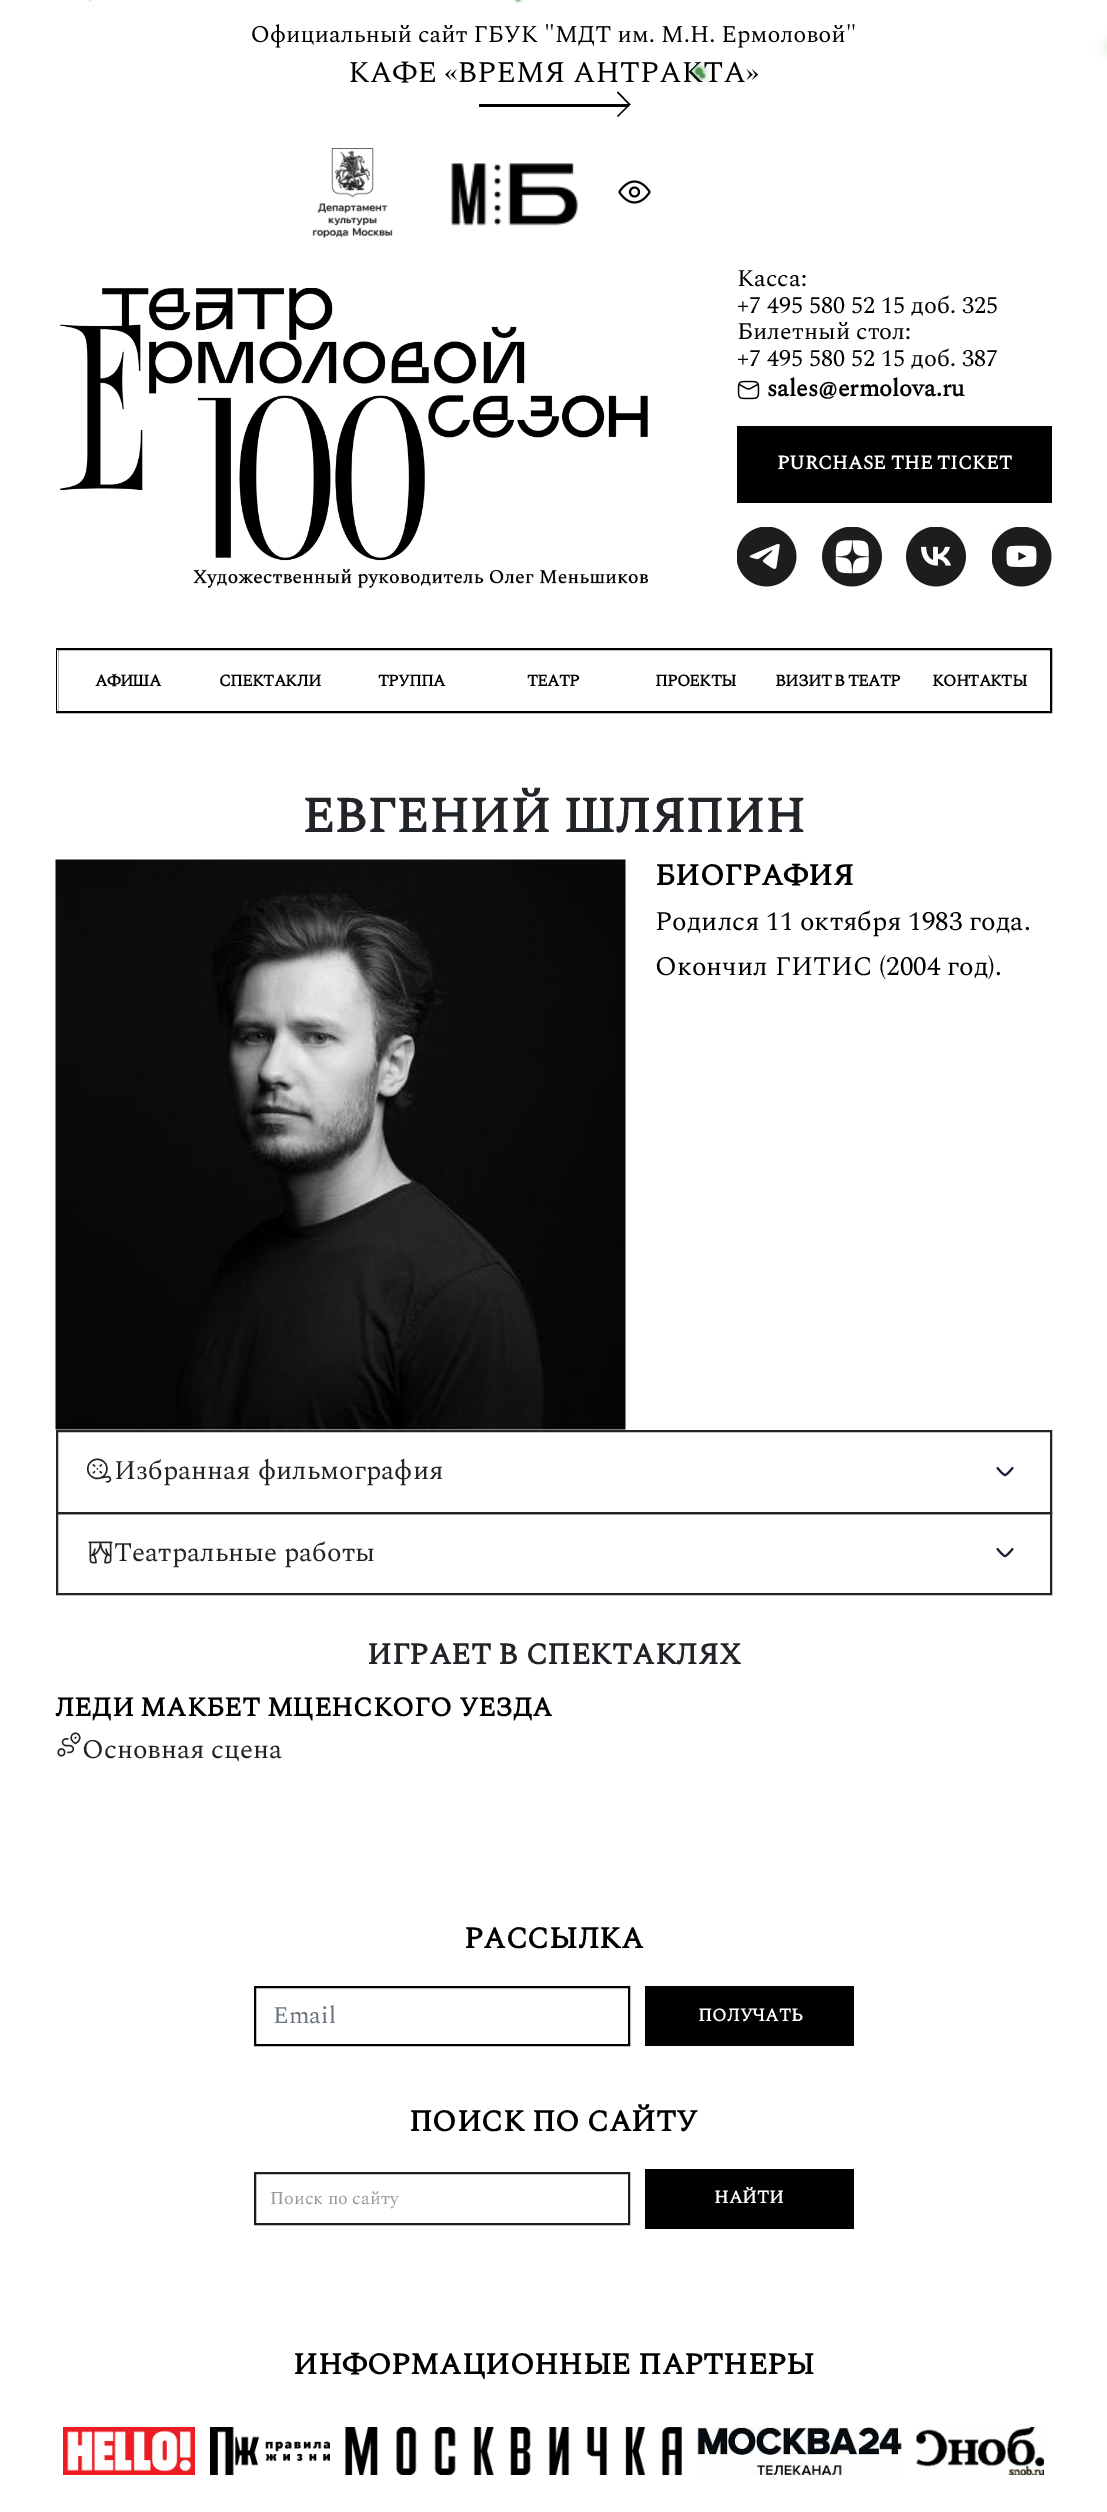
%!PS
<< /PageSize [1107 2512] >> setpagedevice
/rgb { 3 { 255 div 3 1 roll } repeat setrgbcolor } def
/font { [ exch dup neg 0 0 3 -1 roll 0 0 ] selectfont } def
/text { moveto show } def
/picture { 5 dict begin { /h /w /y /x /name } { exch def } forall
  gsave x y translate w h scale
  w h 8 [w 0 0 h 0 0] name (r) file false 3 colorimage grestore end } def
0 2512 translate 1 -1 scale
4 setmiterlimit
255 255 255 rgb
0 0 1107 2512 rectfill
0 0 0 rgb
479 104 150 3 rectfill
618 91.5 moveto 12.5 13 rlineto -1 1 rlineto -12.5 -13 rlineto closepath fill
629.5 103.5 moveto 1 1 rlineto -12.5 12.5 rlineto -1 -1 rlineto closepath fill
(img_02.rgb) 312 148 81 90 picture
(img_03.rgb) 451 163 127 63 picture
(img_04.rgb) 618 180 33 24 picture
(img_05.rgb) 60 288 588 300 picture
(img_06.rgb) 737 380 23 20 picture
737 426 315 77 rectfill
(img_07.rgb) 737 527 60 60 picture
(img_08.rgb) 822 527 60 60 picture
(img_09.rgb) 906 527 60 60 picture
(img_10.rgb) 992 527 60 60 picture
2 setlinewidth
57 649 994 63 rectstroke
255 255 255 rgb
57 650 1 61 rectfill
(img_11.rgb) 55 859 571 571 picture
33 37 41 rgb
57 1431 994 82 rectstroke
20 27 52 rgb
1.9 setlinewidth
1 setlinecap
1 setlinejoin
1012.5 1468 moveto 0 0 -5.5 7 -7.5 7 rcurveto -2 0 -7.5 -7 -7.5 -7 rcurveto stroke
33 37 41 rgb
2 setlinewidth
0 setlinecap
0 setlinejoin
57 1513 994 81 rectstroke
(img_12.rgb) 88 1541 25 23 picture
20 27 52 rgb
1.9 setlinewidth
1 setlinecap
1 setlinejoin
1012.5 1549 moveto 0 0 -5.5 7 -7.5 7 rcurveto -2 0 -7.5 -7 -7.5 -7 rcurveto stroke
(img_13.rgb) 57 1732 24 25 picture
0 0 0 rgb
2 setlinewidth
0 setlinecap
0 setlinejoin
255 1987 374 58 rectstroke
645 1986 209 60 rectfill
31 28 28 rgb
255 2173 374 51 rectstroke
0 0 0 rgb
645 2169 209 60 rectfill
(img_14.rgb) 63 2427 132 48 picture
(img_15.rgb) 210 2427 120 48 picture
(img_16.rgb) 345 2427 337 48 picture
(img_17.rgb) 697 2427 205 48 picture
(img_18.rgb) 916 2427 128 48 picture
/Spectral-Regular 24 font
(Официальный сайт ГБУК "МДТ им. М.Н. Ермоловой") 251 42 text
/Spectral-Bold 30 font
(КАФЕ «ВРЕМЯ АНТРАКТА») 348 82 text
(img_01.rgb) 88 0 1019 86 picture
/Spectral-Regular 24 font
(Касса:) 737 286 text
(+7 495 580 52 15 доб. 325) 737 313 text
(Билетный стол:) 737 339 text
(+7 495 580 52 15 доб. 387) 737 366 text
/Spectral-Bold 24 font
(sales@ermolova.ru) 767 396 text
/Spectral-Bold 19.5 font
255 255 255 rgb
(PURCHASE THE TICKET) 777 469 text
/Spectral-Bold 16.5 font
0 0 0 rgb
95 686 moveto -0.75 0 (АФИША) ashow
219 686 moveto -0.75 0 (СПЕКТАКЛИ) ashow
378 686 moveto -0.75 0 (ТРУППА) ashow
527 686 moveto -0.75 0 (ТЕАТР) ashow
655 686 moveto -0.75 0 (ПРОЕКТЫ) ashow
775 686 moveto -0.75 0 (ВИЗИТ В ТЕАТР) ashow
932 686 moveto -0.75 0 (КОНТАКТЫ) ashow
/Spectral-Bold 49.6 font
33 37 41 rgb
(ЕВГЕНИЙ ШЛЯПИН) 302 832 text
/Spectral-Bold 30 font
0 0 0 rgb
(БИОГРАФИЯ) 655 885 text
/Spectral-Regular 27 font
(Родился 11 октября 1983 года.) 655 930 text
(Окончил ГИТИС \(2004 год\).) 655 975 text
/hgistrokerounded-Regular 27 font
33 37 41 rgb
(⸄) 87 1484 text
/Spectral-Regular 27 font
(Избранная фильмография) 114 1479 text
(Театральные работы) 114 1561 text
/Spectral-Bold 30 font
(ИГРАЕТ В СПЕКТАКЛЯХ) 367 1664 text
/Spectral-Bold 27 font
0 0 0 rgb
(ЛЕДИ МАКБЕТ МЦЕНСКОГО УЕЗДА) 55 1716 text
/Spectral-Regular 27 font
33 37 41 rgb
(Основная сцена) 82 1758 text
/Spectral-Bold 30 font
0 0 0 rgb
(РАССЫЛКА) 464 1948 text
/Spectral-Regular 24 font
108 117 125 rgb
(Email) 273 2023 text
/Spectral-Bold 18 font
255 255 255 rgb
(ПОЛУЧАТЬ) 698 2021 text
/Spectral-Bold 30 font
0 0 0 rgb
(ПОИСК ПО САЙТУ) 409 2131 text
/Spectral-Regular 18 font
153 153 153 rgb
(Поиск по сайту) 270 2204 text
/Spectral-Bold 18 font
255 255 255 rgb
(НАЙТИ) 714 2203 text
/Spectral-Bold 30 font
0 0 0 rgb
(ИНФОРМАЦИОННЫЕ ПАРТНЕРЫ) 293 2374 text
showpage
